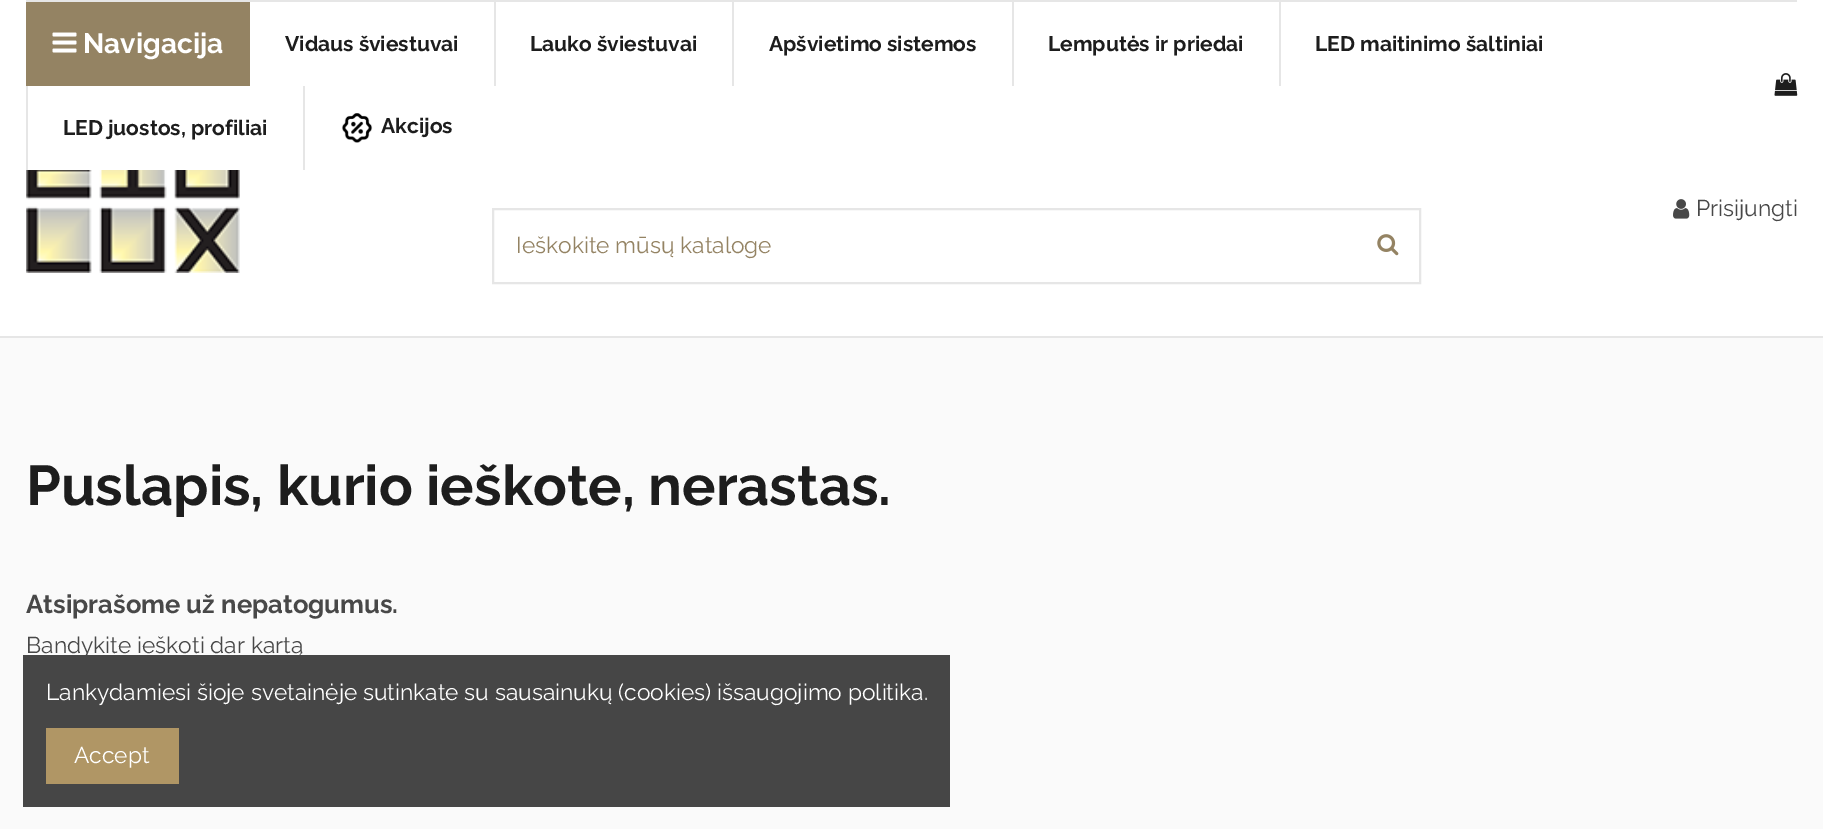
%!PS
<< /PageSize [1823 829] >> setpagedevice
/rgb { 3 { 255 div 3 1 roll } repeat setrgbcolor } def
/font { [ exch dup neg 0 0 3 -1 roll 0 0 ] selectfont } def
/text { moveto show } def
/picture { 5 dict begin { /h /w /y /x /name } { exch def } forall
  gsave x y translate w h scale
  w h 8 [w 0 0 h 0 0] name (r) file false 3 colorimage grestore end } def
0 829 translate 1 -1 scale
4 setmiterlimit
250 250 250 rgb
0 0 1823 829 rectfill
255 255 255 rgb
0 0 1823 336 rectfill
230 230 230 rgb
0 336 1823 2 rectfill
26 0 1771 2 rectfill
148 131 99 rgb
26 2 224 84 rectfill
(img_01.rgb) 52 32 25 21 picture
230 230 230 rgb
494 2 2 84 rectfill
732 2 2 84 rectfill
1012 2 2 84 rectfill
1279 2 2 84 rectfill
26 86 2 84 rectfill
303 86 2 84 rectfill
(img_02.rgb) 341 113 32 30 picture
(img_03.rgb) 1774 73 24 23 picture
(img_04.rgb) 26 170 214 103 picture
(img_05.rgb) 1673 199 17 20 picture
2 setlinewidth
493 209 927 74 rectstroke
(img_06.rgb) 1377 234 22 22 picture
/Raleway-Bold 28 font
255 255 255 rgb
(Navigacija) 83 53 text
/Raleway-Bold 21 font
29 29 29 rgb
(Vidaus šviestuvai) 285 51 text
(Lauko šviestuvai) 530 51 text
(Apšvietimo sistemos) 769 51 text
(Lemputės ir priedai) 1048 51 text
(LED maitinimo šaltiniai) 1315 51 text
(LED juostos, profiliai) 63 135 text
(Akcijos) 381 133 text
/Raleway-Regular 22.75 font
72 72 72 rgb
(Prisijungti) 1696 216 text
148 131 99 rgb
(Ieškokite mūsų kataloge) 516 253 text
/Raleway-Bold 56 font
29 29 29 rgb
(Puslapis, kurio ieškote, nerastas.) 26 505 text
/Raleway-Bold 25.6 font
72 72 72 rgb
(Atsiprašome už nepatogumus.) 26 613 text
/Raleway-Regular 22.75 font
(Bandykite ieškoti dar kartą) 26 653 text
70 70 70 rgb
23 655 927 152 rectfill
255 255 255 rgb
(Lankydamiesi šioje svetainėje sutinkate su sausainukų \(cookies\) išsaugojimo politika.) 46 700 text
176 150 101 rgb
46 728 133 56 rectfill
255 255 255 rgb
(Accept) 74 763 text
showpage
